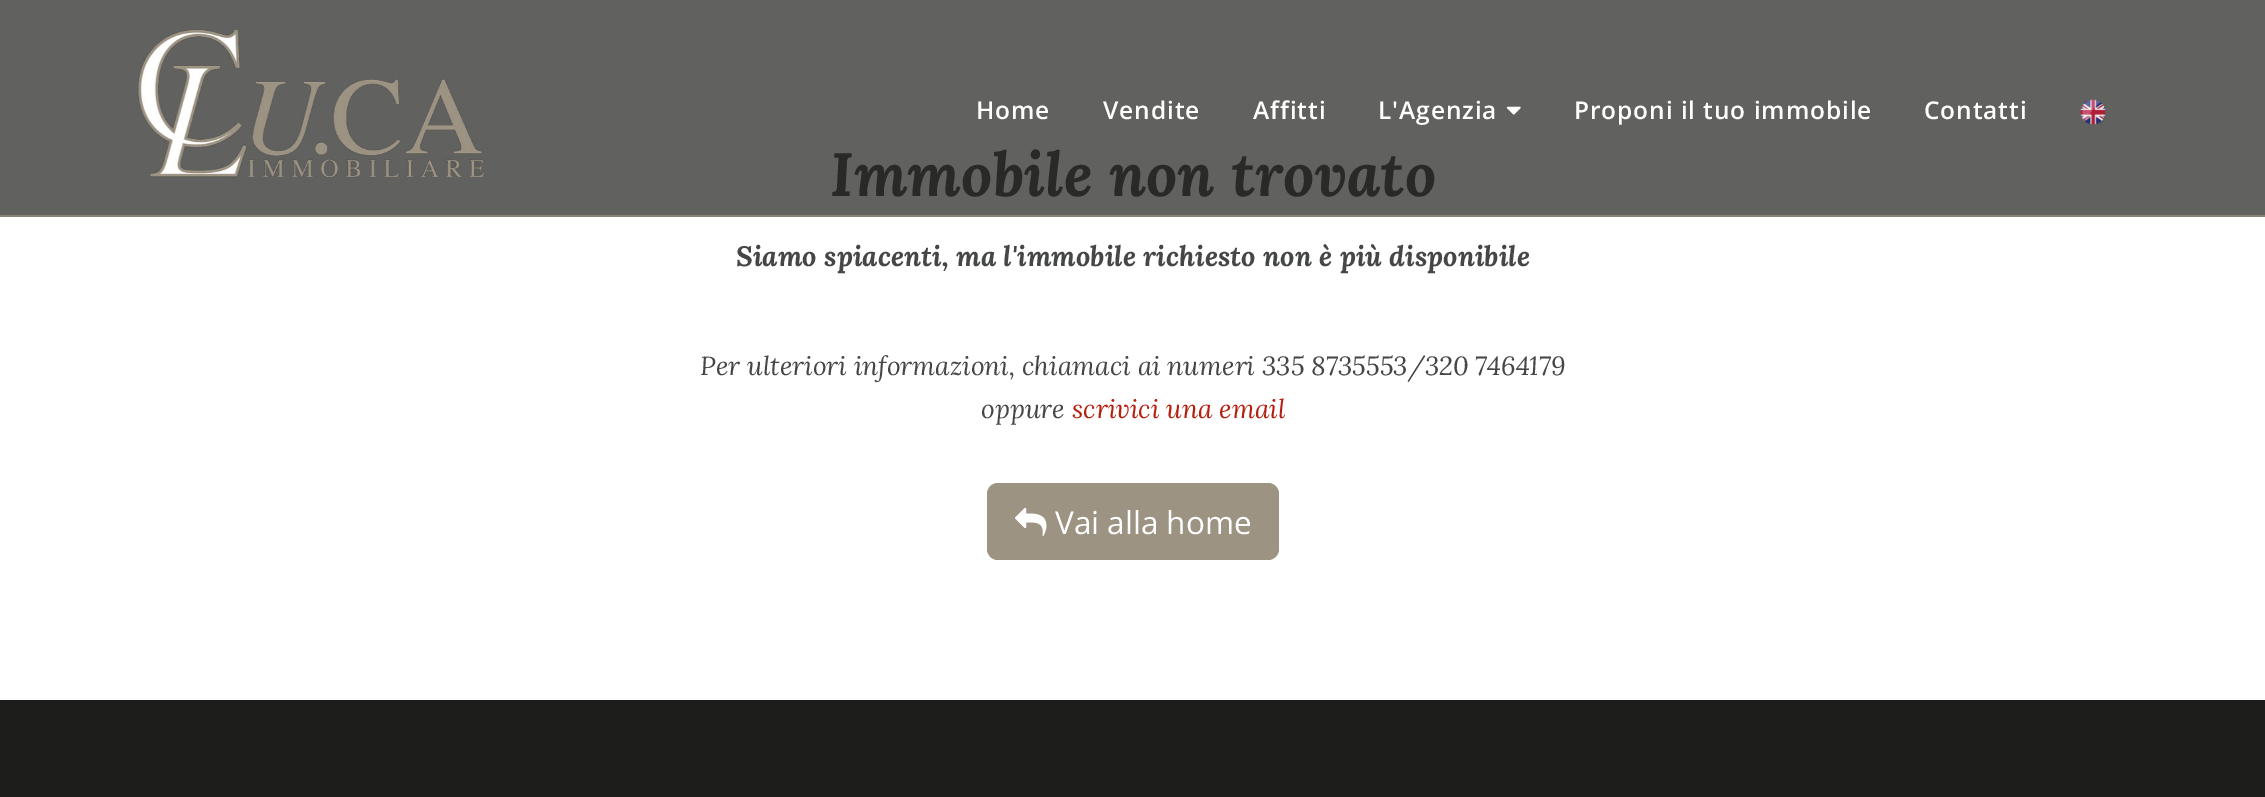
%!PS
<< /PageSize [2265 797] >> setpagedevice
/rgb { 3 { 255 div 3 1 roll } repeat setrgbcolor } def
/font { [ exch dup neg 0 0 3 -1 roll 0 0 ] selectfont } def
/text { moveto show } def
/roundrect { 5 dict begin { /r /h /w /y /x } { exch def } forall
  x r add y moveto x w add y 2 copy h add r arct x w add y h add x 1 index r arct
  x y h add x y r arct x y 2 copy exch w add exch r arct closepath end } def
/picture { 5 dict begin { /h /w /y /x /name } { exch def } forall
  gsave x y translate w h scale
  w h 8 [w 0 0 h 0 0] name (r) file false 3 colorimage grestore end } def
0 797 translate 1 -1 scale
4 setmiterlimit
255 255 255 rgb
0 0 2265 797 rectfill
97 97 95 rgb
0 0 2265 215 rectfill
137 131 118 rgb
0 215 2265 2 rectfill
(img_01.rgb) 137 29 348 150 picture
(img_02.rgb) 1506 106 15 9 picture
(img_03.rgb) 2080 99 26 26 picture
156 147 130 rgb
987 483 292 77 11 roundrect fill
(img_04.rgb) 1015 507 32 29 picture
29 29 27 rgb
0 700 2265 97 rectfill
/OpenSans-SemiBold 24.5 font
255 255 255 rgb
976 119 moveto 0.9 0 (Home) ashow
1103 119 moveto 0.9 0 (Vendite) ashow
1253 119 moveto 0.9 0 (Affitti) ashow
1378 119 moveto 0.9 0 (L'Agenzia) ashow
1574 119 moveto 0.9 0 (Proponi il tuo immobile) ashow
1924 119 moveto 0.9 0 (Contatti) ashow
/Lora-BoldItalic 61.25 font
41 41 40 rgb
(Immobile non trovato) 830 196 text
/Lora-BoldItalic 28 font
69 70 70 rgb
(Siamo spiacenti, ma l'immobile richiesto non è più disponibile) 736 266 text
/Lora-Italic 26.25 font
(Per ulteriori informazioni, chiamaci ai numeri 335 8735553/320 7464179) 700 375 text
(oppure) 981 418 text
182 31 14 rgb
(scrivici una email) 1072 418 text
/OpenSans-Regular 31.5 font
255 255 255 rgb
(Vai alla home) 1055 534 text
showpage
